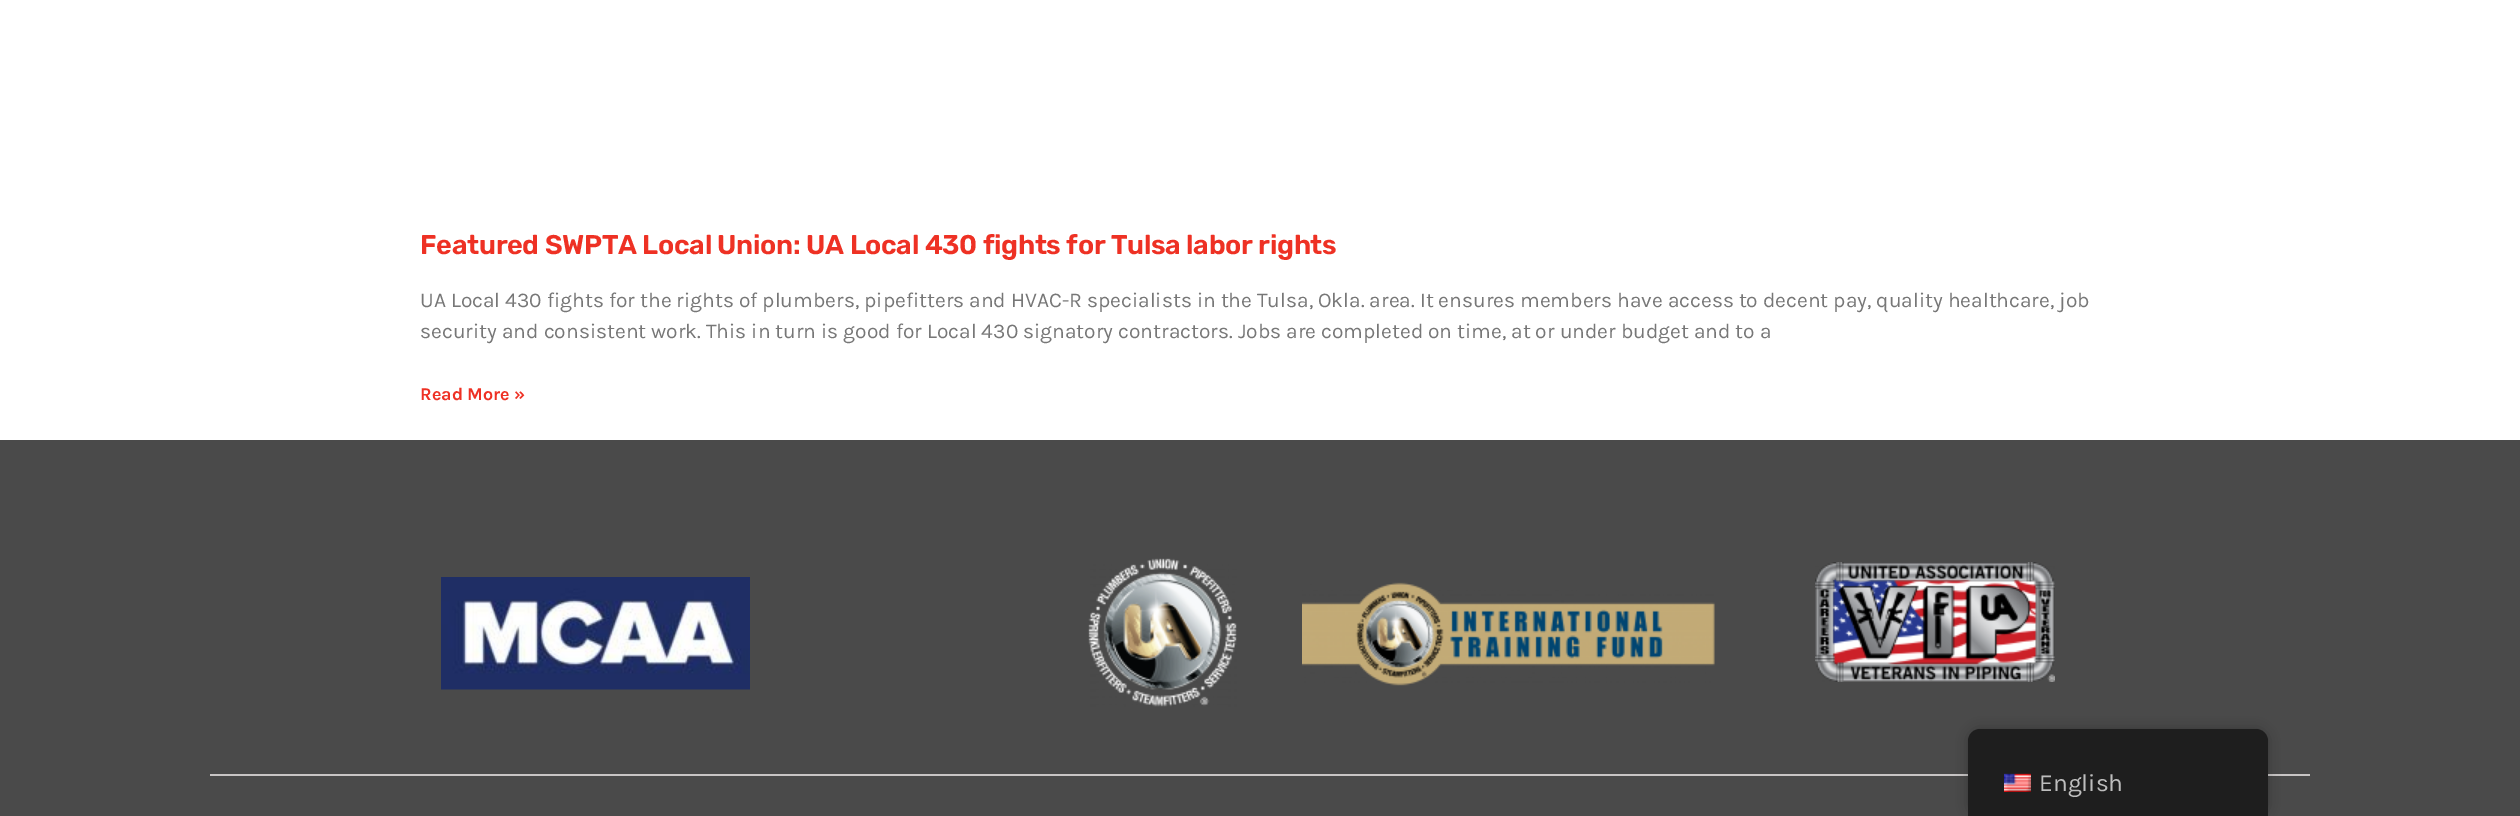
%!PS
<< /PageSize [2520 816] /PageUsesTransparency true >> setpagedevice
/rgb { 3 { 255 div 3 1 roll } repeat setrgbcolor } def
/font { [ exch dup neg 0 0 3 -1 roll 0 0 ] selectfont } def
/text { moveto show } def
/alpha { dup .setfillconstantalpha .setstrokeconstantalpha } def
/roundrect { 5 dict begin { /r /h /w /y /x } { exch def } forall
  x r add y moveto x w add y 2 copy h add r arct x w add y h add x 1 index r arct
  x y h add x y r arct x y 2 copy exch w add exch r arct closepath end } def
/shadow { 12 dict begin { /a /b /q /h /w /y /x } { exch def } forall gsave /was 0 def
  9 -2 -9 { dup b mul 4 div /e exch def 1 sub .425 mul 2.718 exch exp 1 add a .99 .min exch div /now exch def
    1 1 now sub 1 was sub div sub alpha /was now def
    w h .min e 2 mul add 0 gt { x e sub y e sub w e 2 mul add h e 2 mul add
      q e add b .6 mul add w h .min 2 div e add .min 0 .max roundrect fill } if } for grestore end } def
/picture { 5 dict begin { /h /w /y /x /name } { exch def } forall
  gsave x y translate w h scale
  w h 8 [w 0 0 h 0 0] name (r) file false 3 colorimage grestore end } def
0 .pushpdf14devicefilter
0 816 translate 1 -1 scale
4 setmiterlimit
255 255 255 rgb
0 0 2520 816 rectfill
74 74 74 rgb
0 440 2520 376 rectfill
(img_01.rgb) 441 577 309 113 picture
(img_02.rgb) 1088 558 149 149 picture
(img_03.rgb) 1302 582 413 104 picture
(img_04.rgb) 1815 562 240 120 picture
200 197 197 rgb
210 774 2100 2 rectfill
0 0 0 rgb
1968 729 300 87 12 6 0.25 shadow
30 30 30 rgb
1980 729 moveto 276 0 rlineto 6.5 0 12 5.5 12 12 rcurveto 0 75 rlineto -300 0 rlineto 0 -75 rlineto 0 -6.5 5.5 -12 12 -12 rcurveto closepath fill
(img_05.rgb) 2004 773 27 19 picture
/Rubik-SemiBold 27 font
238 49 36 rgb
420 254 moveto -0.3 0 (Featured SWPTA Local Union: UA Local 430 fights for Tulsa labor rights) ashow
/Karla-Regular 21 font
119 119 119 rgb
(UA Local 430 fights for the rights of plumbers, pipefitters and HVAC-R specialists in the Tulsa, Okla. area. It ensures members have access to decent pay, quality healthcare, job) 420 307 text
(security and consistent work. This in turn is good for Local 430 signatory contractors. Jobs are completed on time, at or under budget and to a) 420 338 text
/Karla-Bold 18 font
238 49 36 rgb
(Read More ») 420 400 text
/Karla-Regular 24.5 font
189 189 189 rgb
(English) 2039 791 text
.poppdf14devicefilter showpage
